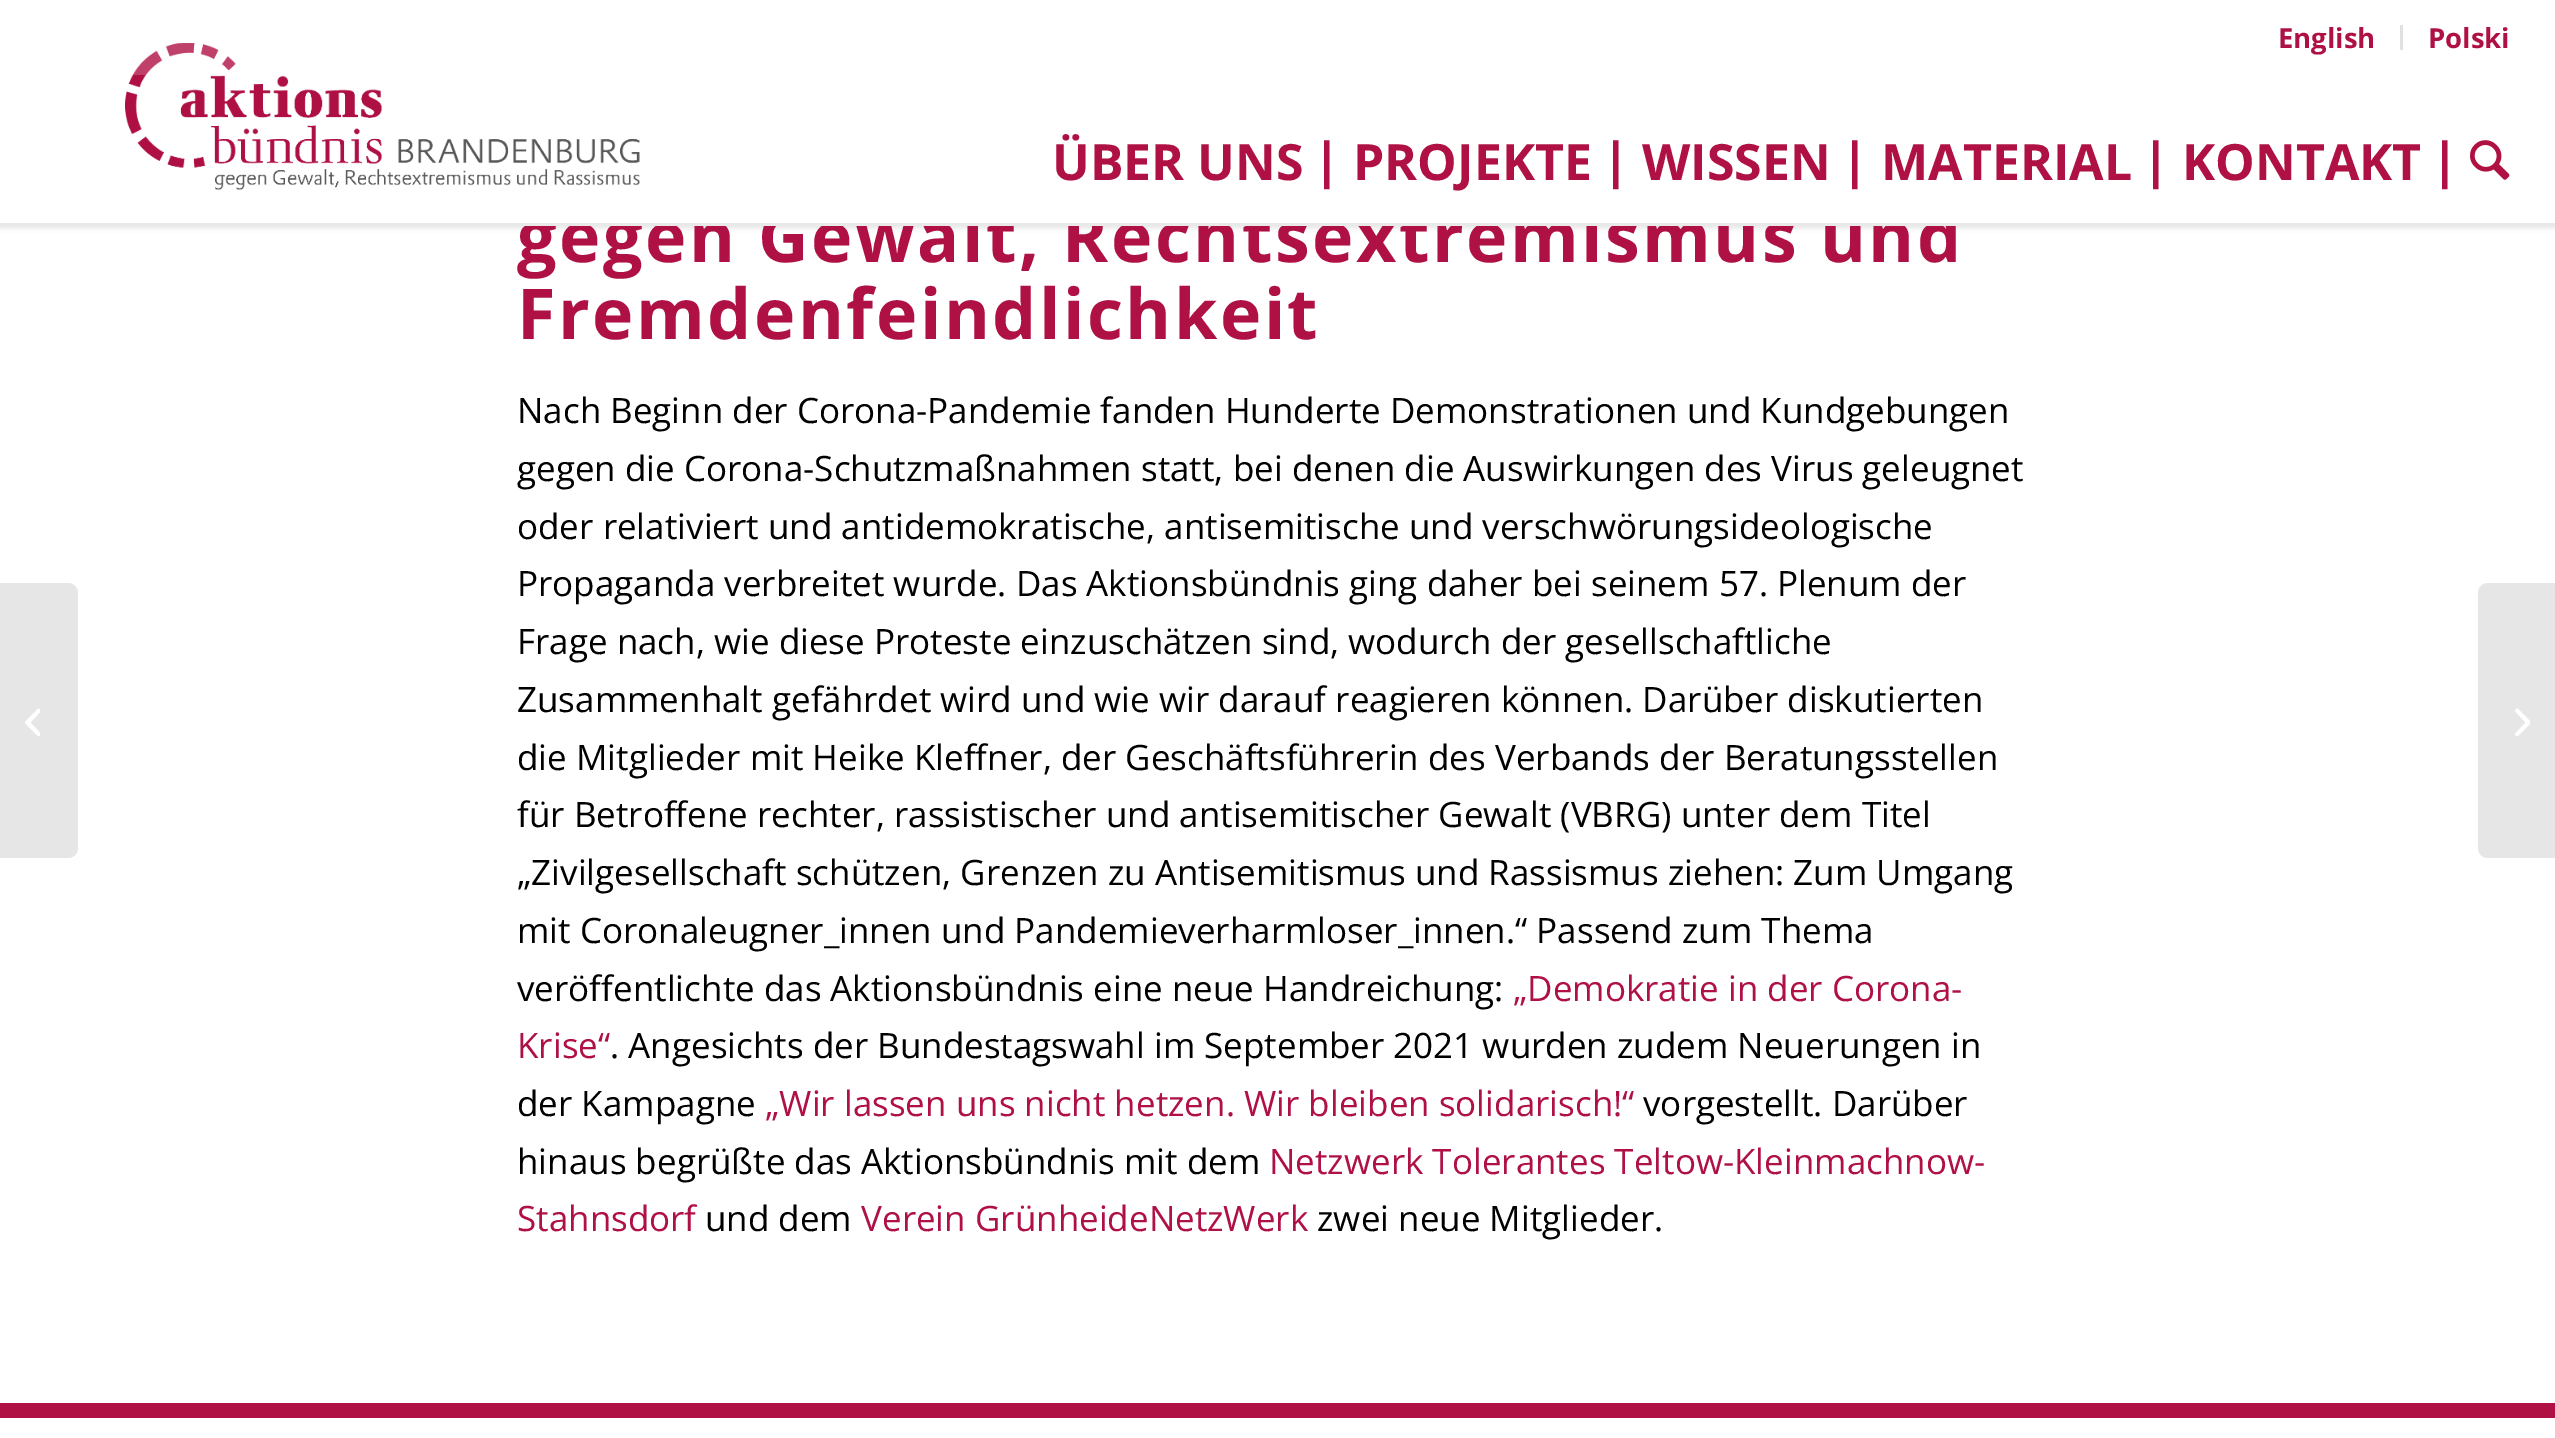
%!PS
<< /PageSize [2555 1438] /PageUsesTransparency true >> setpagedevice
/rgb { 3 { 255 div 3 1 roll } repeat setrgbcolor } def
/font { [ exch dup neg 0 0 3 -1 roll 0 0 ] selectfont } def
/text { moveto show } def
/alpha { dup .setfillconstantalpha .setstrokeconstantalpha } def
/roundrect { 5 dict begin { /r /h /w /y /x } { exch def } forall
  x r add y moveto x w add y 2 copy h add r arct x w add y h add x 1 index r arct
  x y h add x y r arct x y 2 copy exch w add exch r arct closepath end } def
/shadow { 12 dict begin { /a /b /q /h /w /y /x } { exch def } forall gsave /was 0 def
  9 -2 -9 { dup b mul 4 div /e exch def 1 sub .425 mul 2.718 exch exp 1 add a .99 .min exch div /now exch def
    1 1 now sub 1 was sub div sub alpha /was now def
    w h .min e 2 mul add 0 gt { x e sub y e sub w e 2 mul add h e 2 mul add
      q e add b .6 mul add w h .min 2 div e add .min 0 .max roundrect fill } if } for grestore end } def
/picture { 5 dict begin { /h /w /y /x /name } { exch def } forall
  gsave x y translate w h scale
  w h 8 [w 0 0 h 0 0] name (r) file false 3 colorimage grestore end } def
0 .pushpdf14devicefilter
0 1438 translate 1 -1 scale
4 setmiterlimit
255 255 255 rgb
0 0 2555 1438 rectfill
0 0 0 rgb
-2 -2 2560 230 0 2.5 0.1 shadow
230 230 230 rgb
0 583 moveto 68 0 rlineto 5.5 0 10 4.5 10 10 rcurveto 0 255 rlineto 0 5.5 -4.5 10 -10 10 rcurveto -68 0 rlineto closepath fill
(img_03.rgb) 25 708 15 29 picture
175 17 68 rgb
0 1403 2555 15 rectfill
230 230 230 rgb
2488 583 moveto 67 0 rlineto 0 275 rlineto -67 0 rlineto -5.5 0 -10 -4.5 -10 -10 rcurveto 0 -255 rlineto 0 -5.5 4.5 -10 10 -10 rcurveto closepath fill
(img_04.rgb) 2515 708 15 29 picture
/OpenSans-Bold 70 font
175 17 68 rgb
517 262 moveto 2.5 0 (gegen Gewalt, Rechtsextremismus und) ashow
255 255 255 rgb
0 0 2555 223 rectfill
/OpenSans-Bold 27.5 font
175 17 68 rgb
(Polski) 2428 48 text
(English) 2278 48 text
225 225 225 rgb
2400 25 3 25 rectfill
(img_01.rgb) 125 43 515 147 picture
0.2 alpha
255 255 255 rgb
132 43 104 32 rectfill
1 alpha
(img_02.rgb) 2470 140 40 40 picture
/OpenSans-Bold 50 font
175 17 68 rgb
(|) 2431 178 text
(KONTAKT) 2182 180 text
(|) 2142 178 text
(MATERIAL) 1881 180 text
(|) 1841 178 text
(WISSEN) 1642 180 text
(|) 1602 178 text
(PROJEKTE) 1353 180 text
(|) 1313 178 text
(ÜBER UNS) 1052 180 text
233 233 233 rgb
0 223 2555 3 rectfill
/OpenSans-Bold 70 font
175 17 68 rgb
517 339 moveto 2.5 0 (Fremdenfeindlichkeit) ashow
/OpenSans-Regular 35 font
0 0 0 rgb
(Nach Beginn der Corona-Pandemie fanden Hunderte Demonstrationen und Kundgebungen) 517 423 text
(gegen die Corona-Schutzmaßnahmen statt, bei denen die Auswirkungen des Virus geleugnet) 517 481 text
(oder relativiert und antidemokratische, antisemitische und verschwörungsideologische) 517 539 text
(Propaganda verbreitet wurde. Das Aktionsbündnis ging daher bei seinem 57. Plenum der) 517 596 text
(Frage nach, wie diese Proteste einzuschätzen sind, wodurch der gesellschaftliche) 517 654 text
(Zusammenhalt gefährdet wird und wie wir darauf reagieren können. Darüber diskutierten) 517 712 text
(die Mitglieder mit Heike Kleffner, der Geschäftsführerin des Verbands der Beratungsstellen) 517 770 text
(für Betroffene rechter, rassistischer und antisemitischer Gewalt \(VBRG\) unter dem Titel) 517 827 text
(„Zivilgesellschaft schützen, Grenzen zu Antisemitismus und Rassismus ziehen: Zum Umgang) 517 885 text
(mit Coronaleugner_innen und Pandemieverharmloser_innen.“ Passend zum Thema) 517 943 text
(veröffentlichte das Aktionsbündnis eine neue Handreichung:) 517 1001 text
175 17 68 rgb
(„Demokratie in der Corona-) 1513 1001 text
(Krise“) 517 1058 text
0 0 0 rgb
(. Angesichts der Bundestagswahl im September 2021 wurden zudem Neuerungen in) 610 1058 text
(der Kampagne) 517 1116 text
175 17 68 rgb
(„Wir lassen uns nicht hetzen. Wir bleiben solidarisch!“) 765 1116 text
0 0 0 rgb
(vorgestellt. Darüber) 1643 1116 text
(hinaus begrüßte das Aktionsbündnis mit dem) 517 1174 text
175 17 68 rgb
(Netzwerk Tolerantes Teltow-Kleinmachnow-) 1269 1174 text
(Stahnsdorf) 517 1231 text
0 0 0 rgb
(und dem) 705 1231 text
175 17 68 rgb
(Verein GrünheideNetzWerk) 861 1231 text
0 0 0 rgb
(zwei neue Mitglieder.) 1317 1231 text
.poppdf14devicefilter showpage
